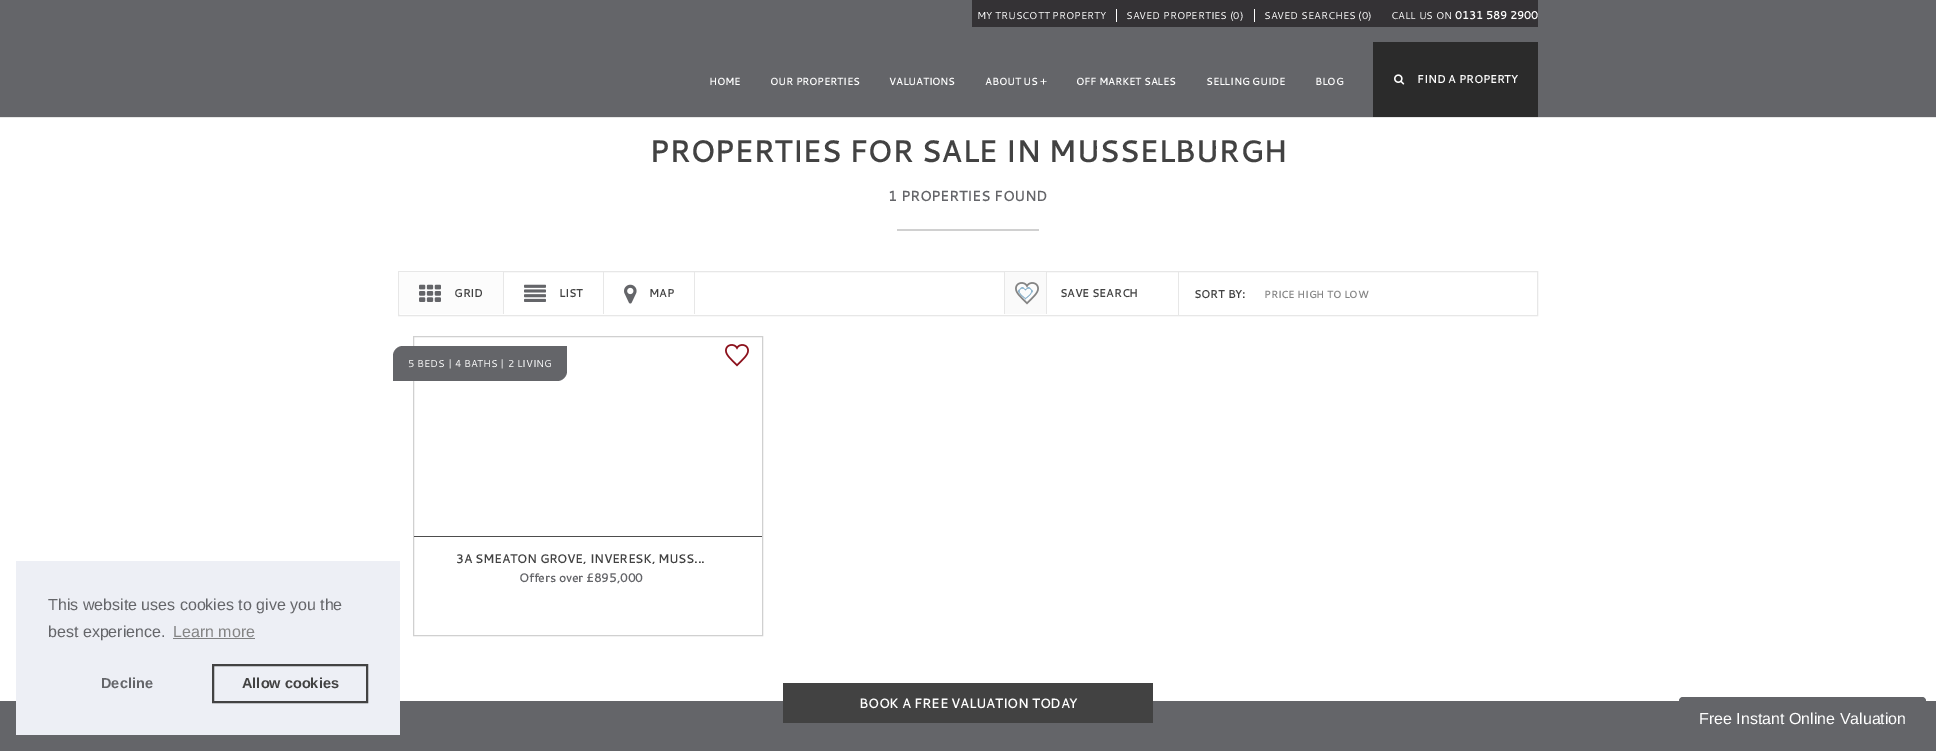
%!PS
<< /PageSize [1936 751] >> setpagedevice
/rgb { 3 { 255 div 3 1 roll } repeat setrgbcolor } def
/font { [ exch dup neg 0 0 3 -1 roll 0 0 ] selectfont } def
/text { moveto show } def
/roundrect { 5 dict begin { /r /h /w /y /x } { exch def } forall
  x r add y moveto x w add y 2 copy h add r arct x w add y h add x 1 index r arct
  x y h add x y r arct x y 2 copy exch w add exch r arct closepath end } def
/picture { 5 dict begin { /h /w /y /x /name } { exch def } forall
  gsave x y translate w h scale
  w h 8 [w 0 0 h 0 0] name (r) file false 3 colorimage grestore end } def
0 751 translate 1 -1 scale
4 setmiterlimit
255 255 255 rgb
0 0 1936 751 rectfill
100 101 105 rgb
0 701 1936 50 rectfill
237 239 245 rgb
16 561 384 174 rectfill
128 129 130 rgb
173 638 82 1 rectfill
66 66 66 rgb
2 setlinewidth
213 665 154 37 rectstroke
100 101 105 rgb
0 0 1936 117 rectfill
52 50 53 rgb
972 0 566 27 rectfill
255 255 255 rgb
1116 9 1 13 rectfill
1254 9 1 13 rectfill
231 231 231 rgb
0 117 1936 1 rectfill
43 43 43 rgb
1373 42 165 75 rectfill
(img_01.rgb) 1394 74 11 11 picture
208 208 208 rgb
897 229 142 2 rectfill
231 231 231 rgb
1 setlinewidth
398.5 271.5 1139 44 rectstroke
252 252 252 rgb
399 272 104 42 rectfill
231 231 231 rgb
503 272 1 42 rectfill
(img_02.rgb) 419 284 22 18 picture
603 272 1 42 rectfill
(img_03.rgb) 524 284 22 18 picture
694 272 1 42 rectfill
(img_04.rgb) 624 284 13 20 picture
1004 272 1 42 rectfill
250 250 250 rgb
1005 272 41 42 rectfill
(img_05.rgb) 1018 287 15 13 picture
231 231 231 rgb
1046 272 1 42 rectfill
(img_06.rgb) 1015 282 24 23 picture
1178 272 1 43 rectfill
208 208 208 rgb
413.5 336.5 349 299 rectstroke
100 101 105 rgb
403 346 moveto 164 0 rlineto 0 25 rlineto 0 5.5 -4.5 10 -10 10 rcurveto -164 0 rlineto 0 -25 rlineto 0 -5.5 4.5 -10 10 -10 rcurveto closepath fill
(img_07.rgb) 725 344 24 23 picture
77 77 77 rgb
414 536 348 1 rectfill
66 66 66 rgb
783 683 370 40 rectfill
100 101 105 rgb
1679 697 247 44 4 roundrect fill
/LiberationSans-Regular 16 font
(This website uses cookies to give you the) 48 610 text
(best experience.) 48 637 text
132 132 132 rgb
(Learn more) 173 637 text
/LiberationSans-Bold 14.5 font
100 101 105 rgb
(Decline) 101 688 text
66 66 66 rgb
(Allow cookies) 242 688 text
/Cantarell-Medium 10 font
255 255 255 rgb
(MY TRUSCOTT PROPERTY) 977 19 text
(SAVED PROPERTIES \(0\)) 1126 19 text
(SAVED SEARCHES \(0\)) 1264 19 text
(CALL US ON) 1391 19 text
/Cantarell-Bold 11 font
(0131 589 2900) 1455 19 text
/Cantarell-Bold 10 font
(HOME) 709 85 text
(OUR PROPERTIES) 770 85 text
(VALUATIONS) 889 85 text
(ABOUT US +) 985 85 text
(OFF MARKET SALES) 1076 85 text
(SELLING GUIDE) 1206 85 text
(BLOG) 1315 85 text
/Cantarell-Bold 11 font
(FIND A PROPERTY) 1417 83 text
/Cantarell-Bold 30 font
66 66 66 rgb
(PROPERTIES FOR SALE IN MUSSELBURGH) 649 162 text
/Cantarell-Bold 14 font
100 101 105 rgb
(1 PROPERTIES FOUND) 888 201 text
/Cantarell-Bold 11 font
66 66 66 rgb
(GRID) 454 297 text
(LIST) 559 297 text
(MAP) 649 297 text
(SAVE SEARCH) 1060 297 text
(SORT BY:) 1194 298 text
/Cantarell-Bold 10 font
132 132 132 rgb
(PRICE HIGH TO LOW) 1264 298 text
/Cantarell-Medium 10 font
255 255 255 rgb
(5 BEDS | 4 BATHS | 2 LIVING) 408 367 text
gsave
452 552 257 12 rectclip
/Cantarell-Bold 12 font
66 66 66 rgb
(3A SMEATON GROVE, INVERESK, MUSS...) 456 563 text
grestore
/Cantarell-Bold 12 font
100 101 105 rgb
(Offers over £895,000) 519 582 text
/Cantarell-Bold 13 font
255 255 255 rgb
(BOOK A FREE VALUATION TODAY) 859 708 text
/LiberationSans-Regular 16 font
(Free Instant Online Valuation) 1699 724 text
showpage
